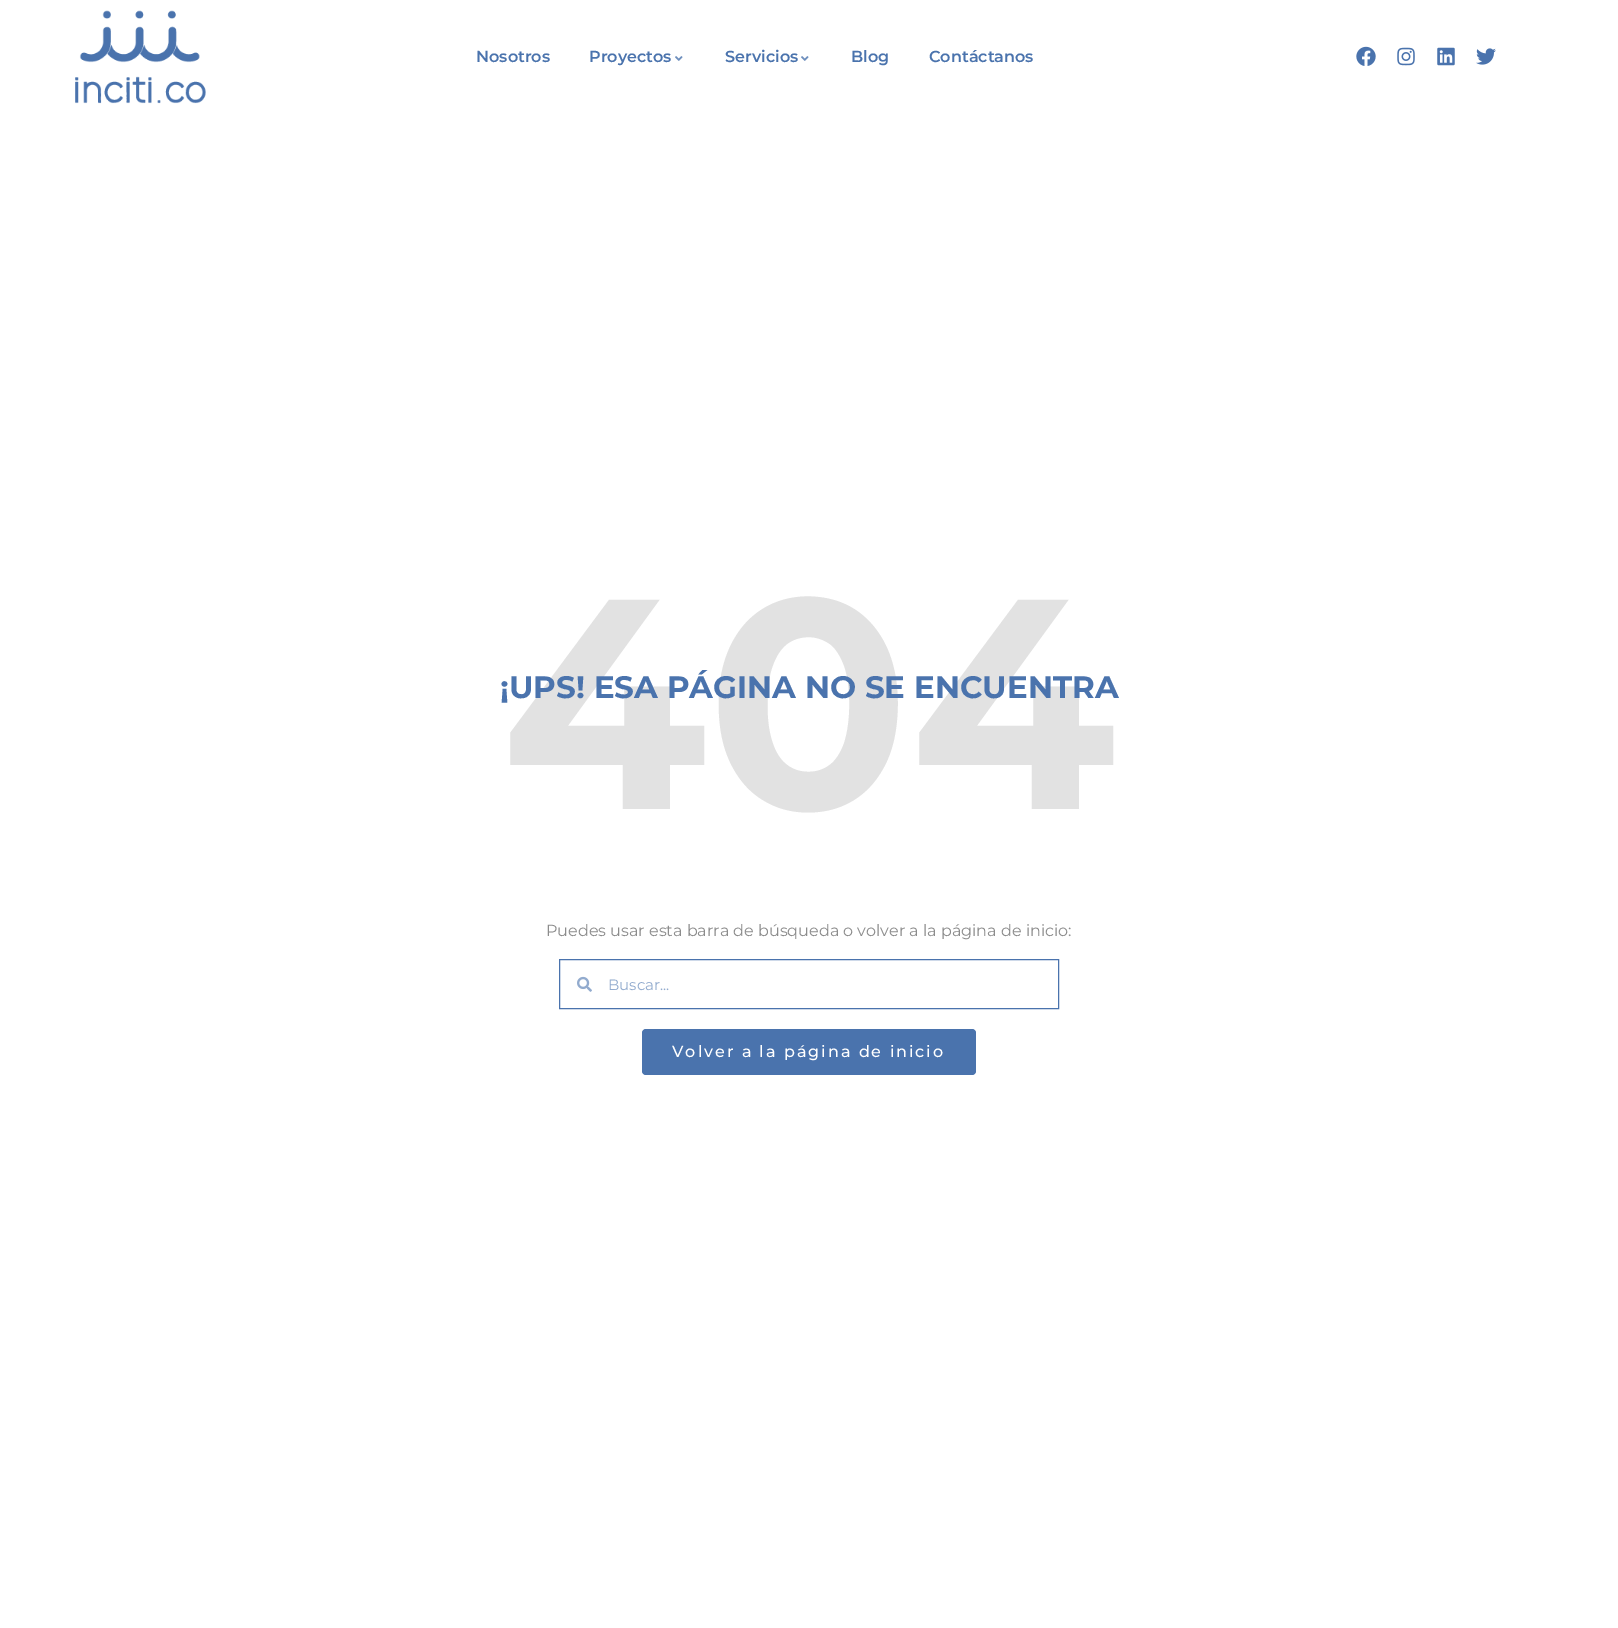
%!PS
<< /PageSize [1618 1628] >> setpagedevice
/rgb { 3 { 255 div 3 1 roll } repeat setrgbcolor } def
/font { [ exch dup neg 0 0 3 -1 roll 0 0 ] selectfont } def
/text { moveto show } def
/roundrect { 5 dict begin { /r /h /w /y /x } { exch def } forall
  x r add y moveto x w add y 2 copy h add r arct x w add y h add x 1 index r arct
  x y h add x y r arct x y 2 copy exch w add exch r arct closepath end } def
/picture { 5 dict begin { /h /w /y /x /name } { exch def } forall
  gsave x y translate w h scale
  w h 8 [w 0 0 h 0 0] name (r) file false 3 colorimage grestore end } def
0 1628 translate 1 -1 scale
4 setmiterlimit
255 255 255 rgb
0 0 1618 1628 rectfill
(img_01.rgb) 75 10 131 94 picture
(img_02.rgb) 675 56 8 5 picture
(img_02.rgb) 801 56 8 5 picture
(img_03.rgb) 1356 46 20 20 picture
(img_04.rgb) 1397 47 18 19 picture
(img_05.rgb) 1437 47 18 19 picture
(img_06.rgb) 1476 48 20 17 picture
74 115 173 rgb
559.5 959.5 499 49 rectstroke
(img_07.rgb) 577 976 15 16 picture
642 1029 334 46 4 roundrect fill
/Montserrat-SemiBold 16 font
(Nosotros) 476 62 text
(Proyectos) 589 62 text
(Servicios) 725 62 text
(Blog) 851 62 text
(Contáctanos) 929 62 text
/Montserrat-Bold 299 font
226 226 226 rgb
(404) 501 809 text
/Montserrat-Bold 31 font
74 115 173 rgb
(¡UPS! ESA PÁGINA NO SE ENCUENTRA) 500 698 text
/Montserrat-Regular 16 font
140 140 140 rgb
(Puedes usar esta barra de búsqueda o volver a la página de inicio:) 546 936 text
/Montserrat-Regular 15 font
146 171 206 rgb
(Buscar...) 608 990 text
/Montserrat-Medium 16 font
255 255 255 rgb
672 1057 moveto 2 0 (Volver a la página de inicio) ashow
showpage
